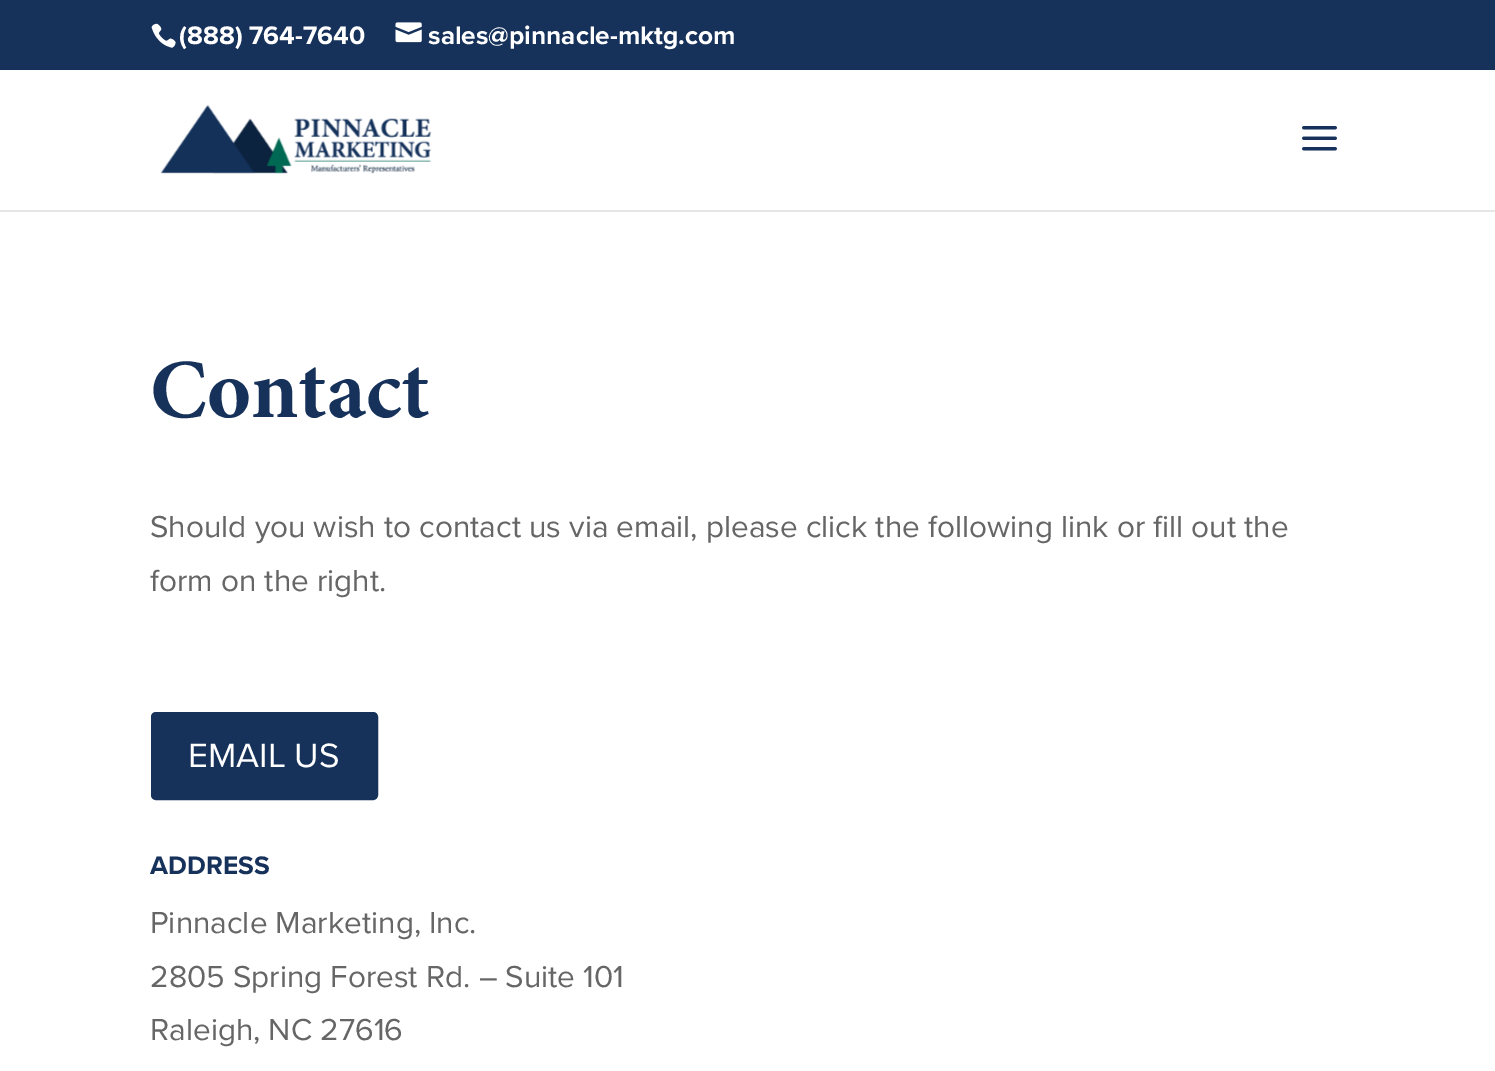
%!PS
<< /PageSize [1495 1071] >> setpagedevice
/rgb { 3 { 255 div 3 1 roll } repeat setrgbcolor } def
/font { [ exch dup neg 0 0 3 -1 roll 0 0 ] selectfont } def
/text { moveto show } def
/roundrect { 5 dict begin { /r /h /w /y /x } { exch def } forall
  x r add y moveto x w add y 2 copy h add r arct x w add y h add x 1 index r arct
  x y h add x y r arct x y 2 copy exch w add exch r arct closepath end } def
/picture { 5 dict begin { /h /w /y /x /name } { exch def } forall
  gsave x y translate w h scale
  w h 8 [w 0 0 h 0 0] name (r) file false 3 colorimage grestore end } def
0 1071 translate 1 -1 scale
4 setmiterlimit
255 255 255 rgb
0 0 1495 1071 rectfill
22 49 90 rgb
0 0 1495 70 rectfill
(img_01.rgb) 151 23 25 25 picture
(img_02.rgb) 395 22 27 21 picture
230 230 230 rgb
0 210 1495 2 rectfill
(img_03.rgb) 160 104 272 70 picture
(img_04.rgb) 1302 126 35 25 picture
22 49 90 rgb
153 714 223 84 3 roundrect gsave fill grestore
4 setlinewidth
stroke
/ProximaNova-Bold 26.25 font
255 255 255 rgb
(\(888\) 764-7640) 179 44 text
(sales@pinnacle-mktg.com) 428 44 text
/Minion-Bold 84 font
22 49 90 rgb
(Contact) 150 417 text
/ProximaNova-Regular 31.5 font
102 102 102 rgb
(Should you wish to contact us via email, please click the following link or fill out the) 150 537 text
(form on the right.) 150 591 text
/ProximaNova-Regular 35 font
255 255 255 rgb
(EMAIL US) 188 767 text
/ProximaNova-Bold 26.25 font
22 49 90 rgb
(ADDRESS) 150 874 text
/ProximaNova-Regular 31.5 font
102 102 102 rgb
(Pinnacle Marketing, Inc.) 150 933 text
(2805 Spring Forest Rd. – Suite 101) 150 987 text
(Raleigh, NC 27616) 150 1040 text
showpage
